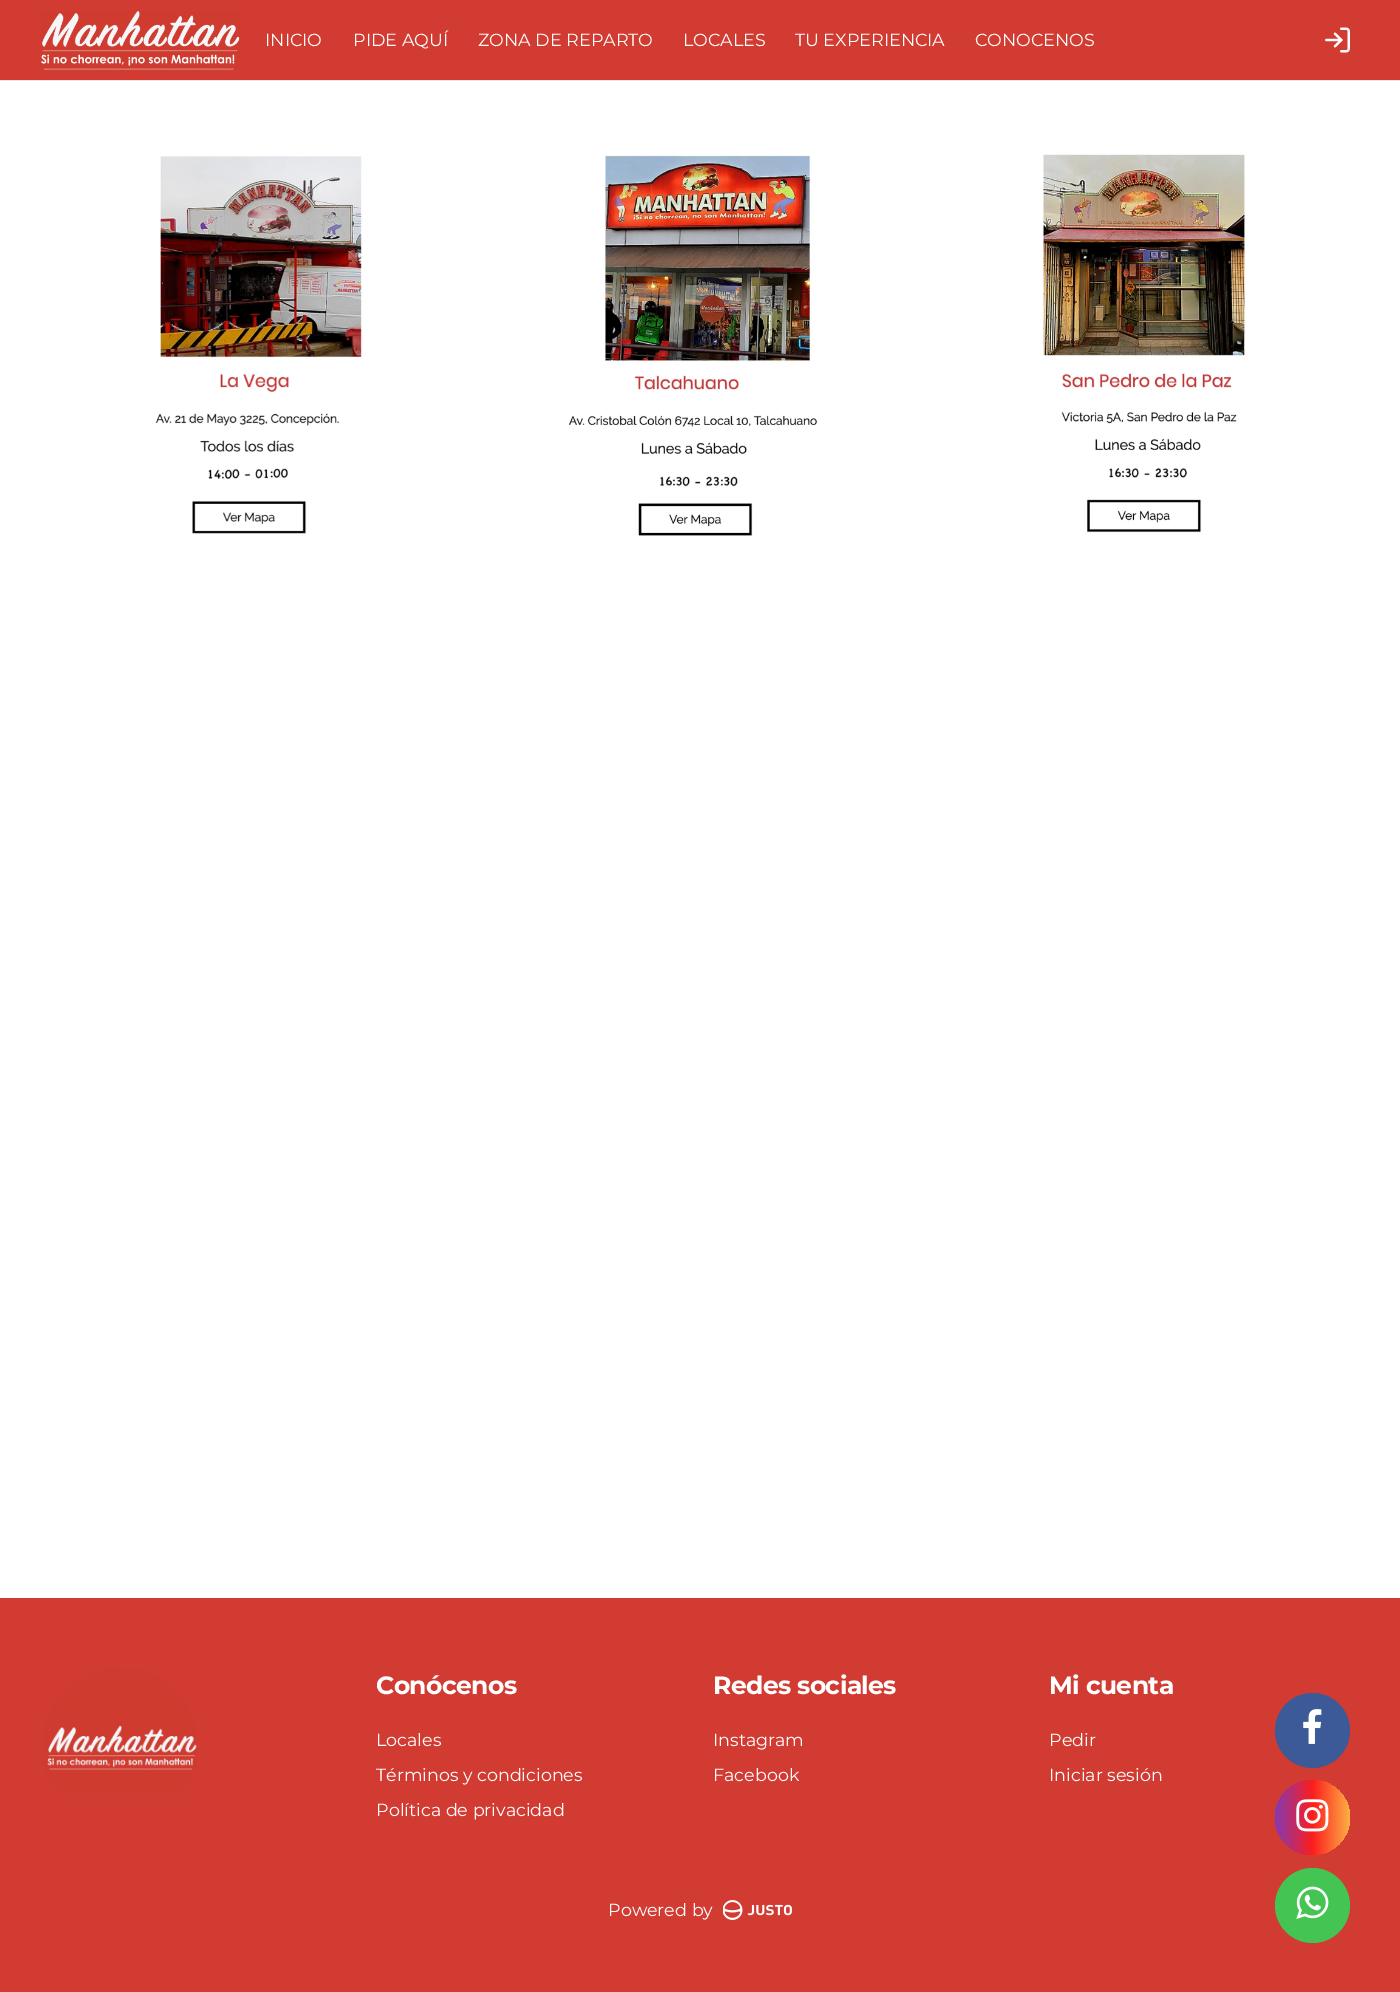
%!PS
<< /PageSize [1400 1992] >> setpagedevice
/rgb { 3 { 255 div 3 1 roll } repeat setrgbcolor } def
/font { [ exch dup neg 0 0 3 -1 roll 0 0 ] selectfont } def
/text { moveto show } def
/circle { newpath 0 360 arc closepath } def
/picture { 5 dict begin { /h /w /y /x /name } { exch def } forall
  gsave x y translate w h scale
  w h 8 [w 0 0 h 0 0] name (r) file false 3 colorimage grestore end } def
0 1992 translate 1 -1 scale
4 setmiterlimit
255 255 255 rgb
0 0 1400 1992 rectfill
209 59 50 rgb
0 0 1400 80 rectfill
229 229 229 rgb
0 80 1400 1 rectfill
(img_01.rgb) 41 11 199 59 picture
(img_02.rgb) 1325 27 25 26 picture
(img_03.rgb) 155 156 208 378 picture
(img_04.rgb) 568 155 250 381 picture
(img_05.rgb) 1042 153 204 380 picture
209 59 50 rgb
0 1598 1400 394 rectfill
60 90 152 rgb
1312.5 1730.5 37.5 circle fill
(img_06.rgb) 1303 1709 19 35 picture
gsave 1312.5 1817.5 37.5 circle clip newpath
<< /ShadingType 2 /ColorSpace /DeviceRGB /Coords [1275 1818 1350 1818] /Extend [true true] /Function << /FunctionType 3 /Domain [0 1] /Functions [<< /FunctionType 2 /Domain [0 1] /C0 [0.514 0.227 0.706] /C1 [0.992 0.114 0.114] /N 1 >> << /FunctionType 2 /Domain [0 1] /C0 [0.992 0.114 0.114] /C1 [0.988 0.69 0.271] /N 1 >>] /Bounds [0.5] /Encode [0 1 0 1] >> >> shfill grestore
(img_07.rgb) 1296 1799 33 33 picture
67 196 83 rgb
1312.5 1905.5 37.5 circle fill
(img_08.rgb) 1296 1886 33 33 picture
(img_09.rgb) 44 1668 153 126 picture
(img_10.rgb) 723 1900 69 20 picture
/Montserrat-Regular 17.5 font
255 255 255 rgb
(INICIO) 265 46 text
(PIDE AQUÍ) 353 46 text
(ZONA DE REPARTO) 478 46 text
(LOCALES) 683 46 text
(TU EXPERIENCIA) 795 46 text
(CONOCENOS) 975 46 text
/Montserrat-Bold 25 font
376 1694 moveto -0.6 0 (Conócenos) ashow
/Montserrat-Regular 17.5 font
(Locales) 376 1746 text
(Términos y condiciones) 376 1781 text
(Política de privacidad) 376 1816 text
/Montserrat-Bold 25 font
713 1694 moveto -0.6 0 (Redes sociales) ashow
/Montserrat-Regular 17.5 font
(Instagram) 713 1746 text
(Facebook) 713 1781 text
/Montserrat-Bold 25 font
1049 1694 moveto -0.6 0 (Mi cuenta) ashow
/Montserrat-Regular 17.5 font
(Pedir) 1049 1746 text
(Iniciar sesión) 1049 1781 text
(Powered by) 608 1916 text
showpage
